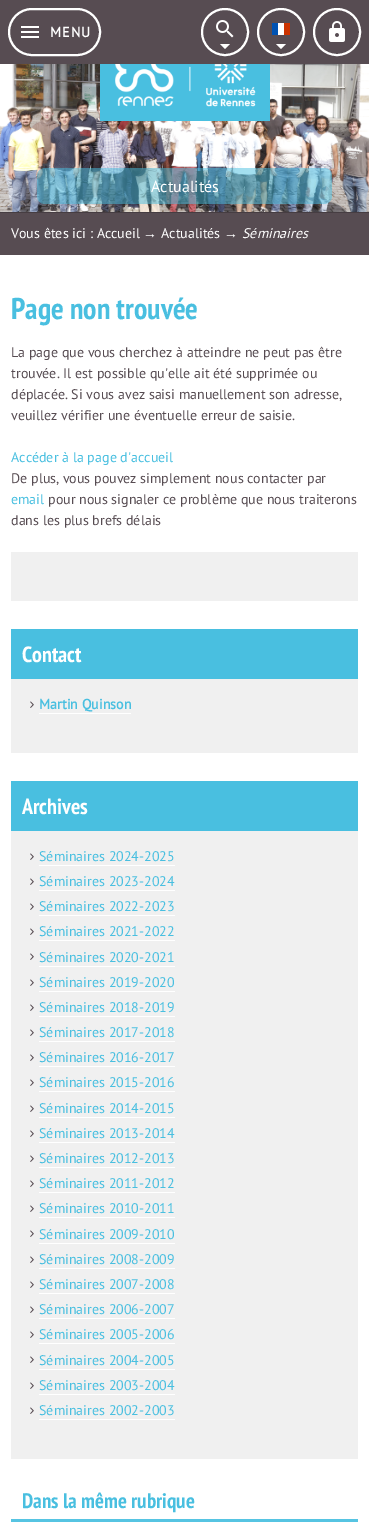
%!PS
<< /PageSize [369 1522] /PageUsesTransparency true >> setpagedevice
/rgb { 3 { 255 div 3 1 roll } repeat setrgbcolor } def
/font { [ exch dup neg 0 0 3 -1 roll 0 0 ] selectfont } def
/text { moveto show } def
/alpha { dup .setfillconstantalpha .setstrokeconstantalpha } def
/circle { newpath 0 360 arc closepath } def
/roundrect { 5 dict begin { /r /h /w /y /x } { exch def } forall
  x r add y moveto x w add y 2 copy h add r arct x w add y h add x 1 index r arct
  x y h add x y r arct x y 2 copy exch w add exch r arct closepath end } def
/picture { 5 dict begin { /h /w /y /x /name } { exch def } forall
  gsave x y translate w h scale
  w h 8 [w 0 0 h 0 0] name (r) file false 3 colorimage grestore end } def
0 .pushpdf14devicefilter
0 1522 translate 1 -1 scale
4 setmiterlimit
255 255 255 rgb
0 0 369 1522 rectfill
87 76 82 rgb
0 0 369 64 rectfill
255 255 255 rgb
2 setlinewidth
9 9 91 46 23 roundrect stroke
(img_01.rgb) 21 26 18 12 picture
225 32 23 circle stroke
(img_02.rgb) 216 20 18 18 picture
220 44 moveto 10 0 rlineto -5 5 rlineto closepath fill
281 32 23 circle stroke
(img_03.rgb) 272 23 18 12 picture
276 44 moveto 10 0 rlineto -5 5 rlineto closepath fill
337 32 23 circle stroke
(img_04.rgb) 329 21 16 21 picture
(img_06.rgb) 0 64 369 148 picture
73 191 224 rgb
100 64 170 57 rectfill
(img_05.rgb) 115 64 141 43 picture
0.5 alpha
37 168 295 36 8 roundrect fill
1 alpha
87 76 82 rgb
0 213 369 42 rectfill
70 61 66 rgb
0 212 369 1 rectfill
240 240 240 rgb
11 552 347 49 rectfill
73 191 224 rgb
11 629 347 50 rectfill
240 240 240 rgb
11 679 347 74 rectfill
(img_07.rgb) 30 701 4 7 picture
255 255 255 rgb
39 713 92 1 rectfill
73 191 224 rgb
11 781 347 50 rectfill
240 240 240 rgb
11 831 347 628 rectfill
(img_07.rgb) 30 853 4 7 picture
255 255 255 rgb
39 865 136 1 rectfill
(img_07.rgb) 30 878 4 7 picture
39 890 136 1 rectfill
(img_07.rgb) 30 903 4 7 picture
39 915 136 1 rectfill
(img_07.rgb) 30 928 4 7 picture
39 940 136 1 rectfill
(img_07.rgb) 30 953 4 7 picture
39 966 136 1 rectfill
(img_07.rgb) 30 979 4 7 picture
39 991 136 1 rectfill
(img_07.rgb) 30 1004 4 7 picture
39 1016 136 1 rectfill
(img_07.rgb) 30 1029 4 7 picture
39 1041 136 1 rectfill
(img_07.rgb) 30 1054 4 7 picture
39 1066 136 1 rectfill
(img_07.rgb) 30 1079 4 7 picture
39 1091 136 1 rectfill
(img_07.rgb) 30 1105 4 7 picture
39 1117 136 1 rectfill
(img_07.rgb) 30 1130 4 7 picture
39 1142 136 1 rectfill
(img_07.rgb) 30 1155 4 7 picture
39 1167 136 1 rectfill
(img_07.rgb) 30 1180 4 7 picture
39 1192 136 1 rectfill
(img_07.rgb) 30 1205 4 7 picture
39 1217 136 1 rectfill
(img_07.rgb) 30 1230 4 7 picture
39 1243 136 1 rectfill
(img_07.rgb) 30 1256 4 7 picture
39 1268 136 1 rectfill
(img_07.rgb) 30 1281 4 7 picture
39 1293 136 1 rectfill
(img_07.rgb) 30 1306 4 7 picture
39 1318 136 1 rectfill
(img_07.rgb) 30 1331 4 7 picture
39 1343 136 1 rectfill
(img_07.rgb) 30 1356 4 7 picture
39 1369 136 1 rectfill
(img_07.rgb) 30 1382 4 7 picture
39 1394 136 1 rectfill
(img_07.rgb) 30 1407 4 7 picture
39 1419 136 1 rectfill
86 196 226 rgb
11 1519 347 3 rectfill
/PTSans-Bold 14 font
255 255 255 rgb
50 37 moveto 1 0 (MENU) ashow
/PTSans-Regular 16 font
(Actualités) 151 192 text
/PTSans-Regular 14 font
(Vous êtes ici : Accueil) 11 238 text
/LiberationSans-Regular 14 font
(→) 143 238 text
/PTSans-Regular 14 font
(Actualités) 161 238 text
/LiberationSans-Regular 14 font
(→) 224 238 text
/PTSans-Italic 14 font
(Séminaires) 242 238 text
/PTSansNarrow-Bold 30 font
73 191 224 rgb
(Page non trouvée) 11 319 text
/PTSans-Regular 14 font
87 76 82 rgb
(La page que vous cherchez à atteindre ne peut pas être) 11 357 text
(trouvée. Il est possible qu'elle ait été supprimée ou) 11 378 text
(déplacée. Si vous avez saisi manuellement son adresse,) 11 399 text
(veuillez vérifier une éventuelle erreur de saisie.) 11 420 text
73 191 224 rgb
(Accéder à la page d'accueil) 11 462 text
87 76 82 rgb
(De plus, vous pouvez simplement nous contacter par) 11 483 text
73 191 224 rgb
(email) 11 504 text
87 76 82 rgb
(pour nous signaler ce problème que nous traiterons) 48 504 text
(dans les plus brefs délais) 11 525 text
/PTSansNarrow-Bold 22 font
255 255 255 rgb
(Contact) 22 662 text
/PTSans-Bold 14 font
73 191 224 rgb
(Martin Quinson) 39 709 text
/PTSansNarrow-Bold 22 font
255 255 255 rgb
(Archives) 22 814 text
/PTSans-Regular 14 font
73 191 224 rgb
(Séminaires 2024-2025) 39 861 text
(Séminaires 2023-2024) 39 886 text
(Séminaires 2022-2023) 39 911 text
(Séminaires 2021-2022) 39 936 text
(Séminaires 2020-2021) 39 962 text
(Séminaires 2019-2020) 39 987 text
(Séminaires 2018-2019) 39 1012 text
(Séminaires 2017-2018) 39 1037 text
(Séminaires 2016-2017) 39 1062 text
(Séminaires 2015-2016) 39 1087 text
(Séminaires 2014-2015) 39 1113 text
(Séminaires 2013-2014) 39 1138 text
(Séminaires 2012-2013) 39 1163 text
(Séminaires 2011-2012) 39 1188 text
(Séminaires 2010-2011) 39 1213 text
(Séminaires 2009-2010) 39 1239 text
(Séminaires 2008-2009) 39 1264 text
(Séminaires 2007-2008) 39 1289 text
(Séminaires 2006-2007) 39 1314 text
(Séminaires 2005-2006) 39 1339 text
(Séminaires 2004-2005) 39 1365 text
(Séminaires 2003-2004) 39 1390 text
(Séminaires 2002-2003) 39 1415 text
/PTSansNarrow-Bold 21 font
(Dans la même rubrique) 22 1508 text
.poppdf14devicefilter showpage
